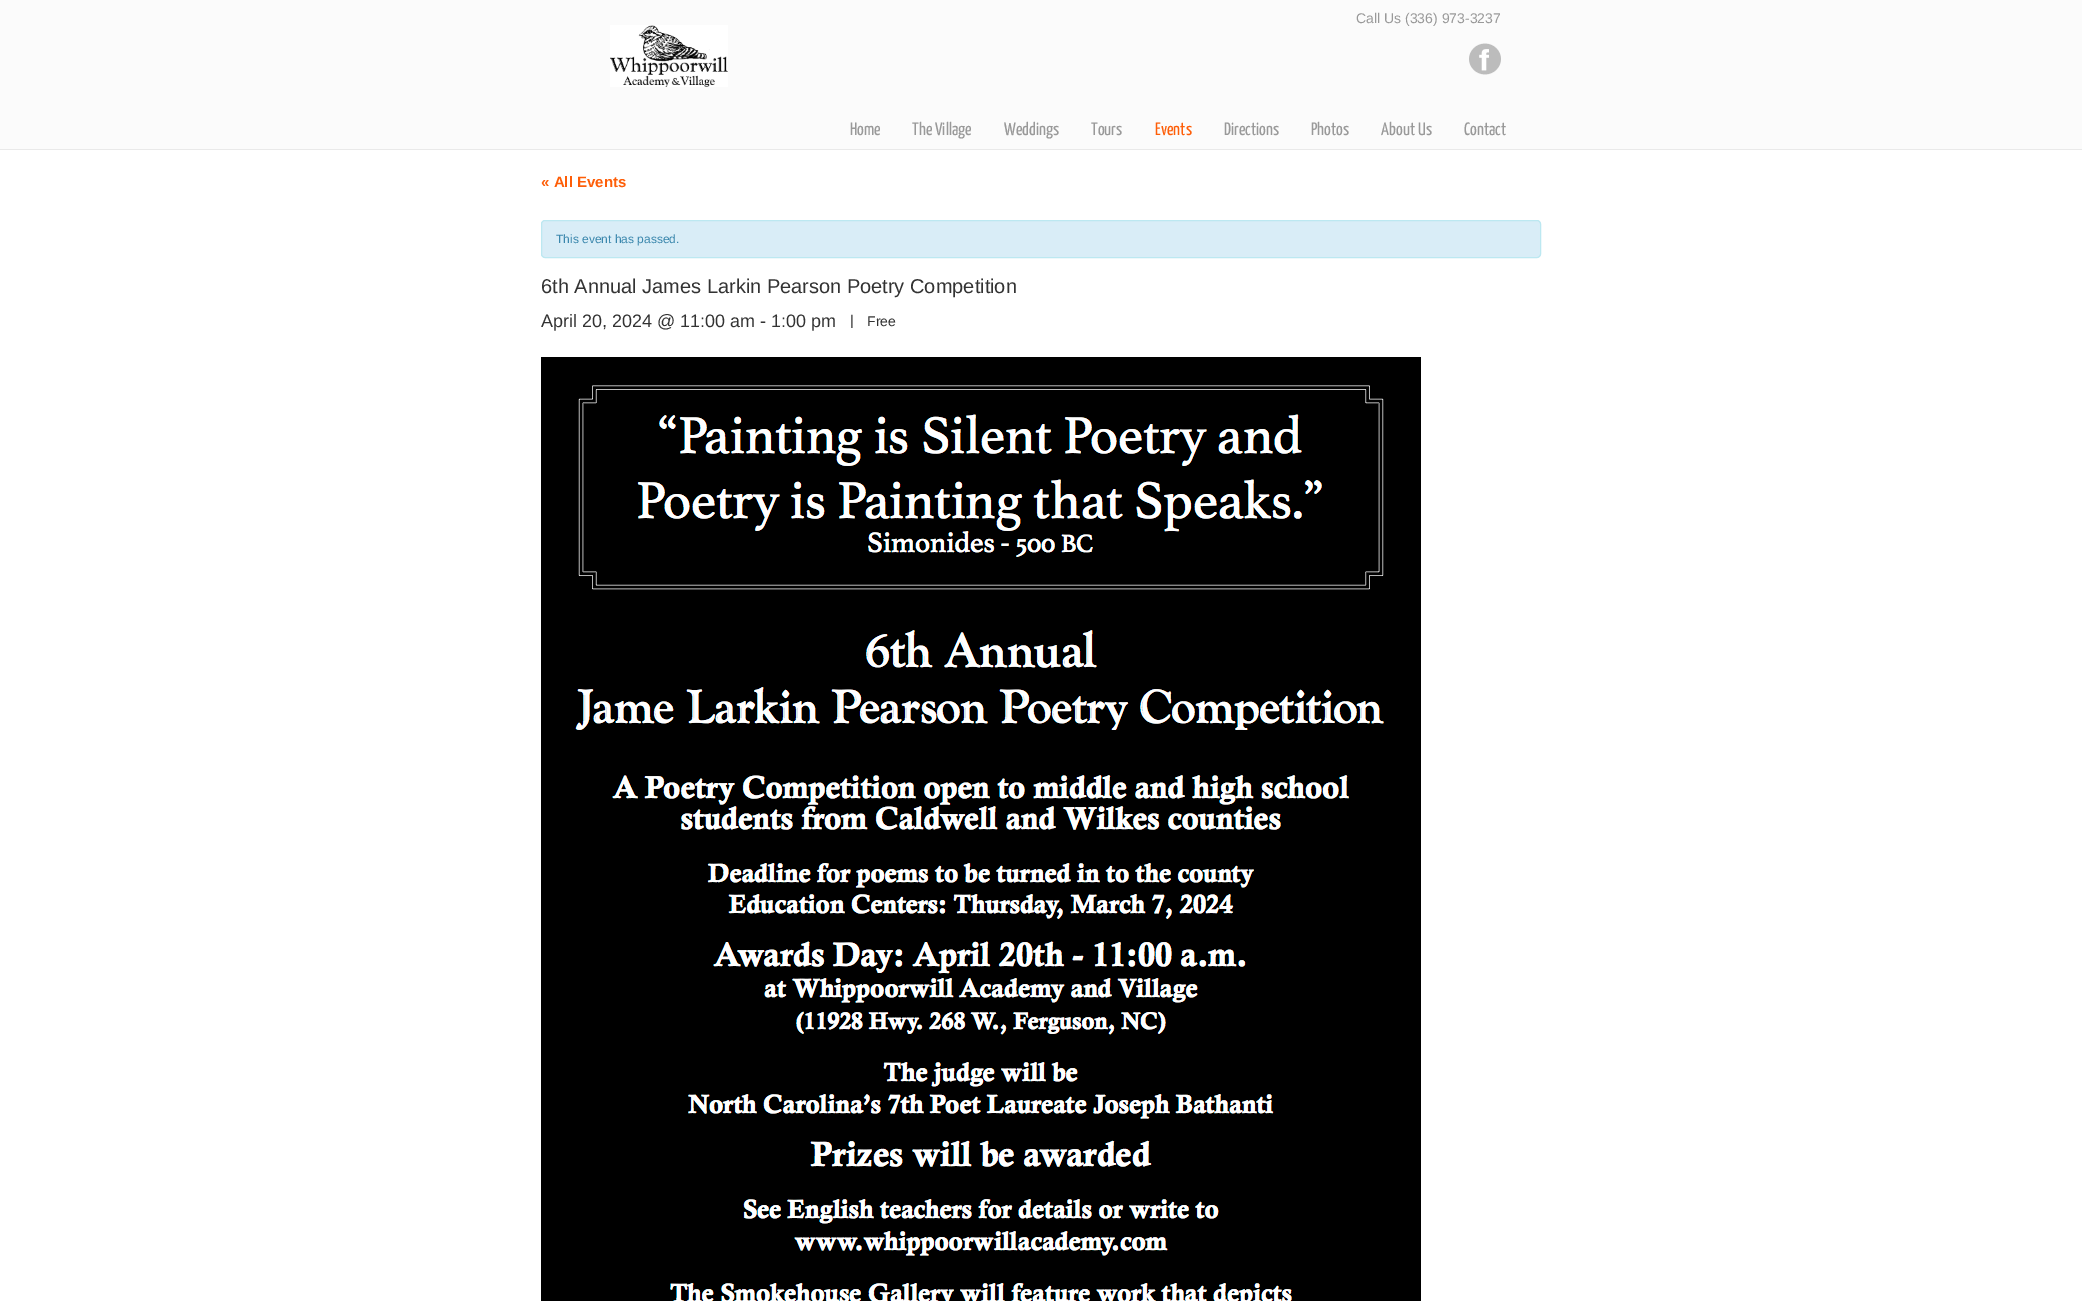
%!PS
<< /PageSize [2082 1301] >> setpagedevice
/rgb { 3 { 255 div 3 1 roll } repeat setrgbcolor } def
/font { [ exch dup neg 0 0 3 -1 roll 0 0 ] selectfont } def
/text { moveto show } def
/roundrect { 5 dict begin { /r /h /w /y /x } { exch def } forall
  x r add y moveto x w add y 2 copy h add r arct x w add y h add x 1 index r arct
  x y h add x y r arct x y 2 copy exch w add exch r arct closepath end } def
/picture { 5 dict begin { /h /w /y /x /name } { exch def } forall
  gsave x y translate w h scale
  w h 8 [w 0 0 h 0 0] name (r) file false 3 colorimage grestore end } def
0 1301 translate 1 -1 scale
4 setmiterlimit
251 251 251 rgb
0 0 2082 1301 rectfill
(img_01.rgb) 610 25 118 62 picture
(img_02.rgb) 1469 43 32 32 picture
233 233 233 rgb
0 149 2082 1 rectfill
255 255 255 rgb
0 150 2082 1151 rectfill
217 237 247 rgb
541.5 220.5 999 37 3.5 roundrect gsave fill grestore
188 232 241 rgb
stroke
(img_03.rgb) 541 357 880 944 picture
/LiberationSans-Regular 14 font
153 153 153 rgb
(Call Us \(336\) 973-3237) 1356 23 text
/YanoneKaffeesatz-ExtraLight 18 font
(Home) 850 135 text
(The Village) 912 135 text
(Weddings) 1004 135 text
(Tours) 1091 135 text
254 94 8 rgb
(Events) 1155 135 text
153 153 153 rgb
(Directions) 1224 135 text
(Photos) 1311 135 text
(About Us) 1381 135 text
(Contact) 1464 135 text
/LiberationSans-Bold 15 font
254 94 8 rgb
(« All Events) 541 187 text
/LiberationSans-Regular 12 font
58 135 173 rgb
(This event has passed.) 556 243 text
/LiberationSans-Regular 20 font
51 51 51 rgb
(6th Annual James Larkin Pearson Poetry Competition) 541 293 text
/LiberationSans-Regular 18 font
(April 20, 2024 @ 11:00 am - 1:00 pm) 541 327 text
/LiberationSans-Regular 14 font
(|) 850 325 text
(Free) 867 326 text
showpage
